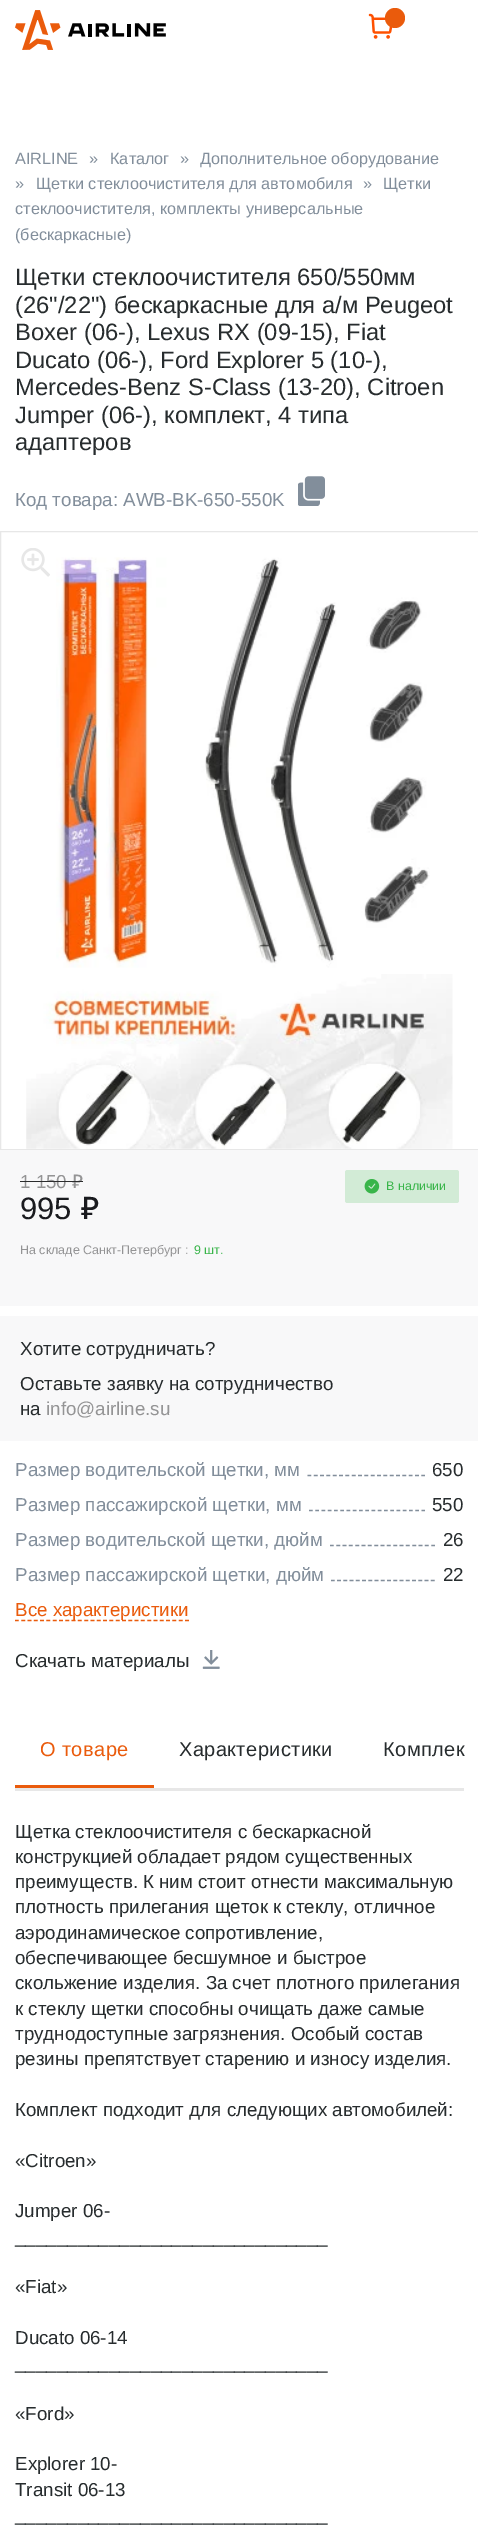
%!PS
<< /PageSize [478 2543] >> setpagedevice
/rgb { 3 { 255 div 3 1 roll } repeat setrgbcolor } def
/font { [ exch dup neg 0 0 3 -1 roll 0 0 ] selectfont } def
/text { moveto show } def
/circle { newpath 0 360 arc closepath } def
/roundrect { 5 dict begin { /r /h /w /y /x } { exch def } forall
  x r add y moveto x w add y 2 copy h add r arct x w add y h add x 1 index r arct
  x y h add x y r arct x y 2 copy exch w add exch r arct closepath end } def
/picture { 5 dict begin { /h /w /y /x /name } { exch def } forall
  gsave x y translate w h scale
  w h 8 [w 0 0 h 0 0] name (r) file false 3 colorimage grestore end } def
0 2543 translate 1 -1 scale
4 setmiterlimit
255 255 255 rgb
0 0 478 2543 rectfill
(img_01.rgb) 15 10 151 40 picture
(img_02.rgb) 368 13 25 26 picture
234 91 12 rgb
395 18 10 circle fill
(img_03.rgb) 298 476 27 30 picture
231 231 231 rgb
0.5 531.5 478 618 rectstroke
(img_04.rgb) 21 548 29 29 picture
(img_05.rgb) 56 557 374 411 picture
(img_06.rgb) 26 974 427 175 picture
248 248 249 rgb
0 1150 478 156 rectfill
210 235 214 rgb
345 1170 114 33 2.5 roundrect fill
(img_07.rgb) 364 1179 16 15 picture
248 248 249 rgb
0 1316 478 125 rectfill
130 142 155 rgb
1.2 setlinewidth
[3.75 2.58] 0 setdash
307.5 1475.5 moveto 117.5 0 rlineto stroke
[3.75 2.5] 0 setdash
309 1510.5 moveto 116 0 rlineto stroke
[3.75 2.58] 0 setdash
330 1545.5 moveto 105 0 rlineto stroke
[3.75 2.5] 0 setdash
331 1580.5 moveto 104 0 rlineto stroke
234 91 12 rgb
[3.75 2.55] 0 setdash
15 1620.5 moveto 174 0 rlineto stroke
(img_08.rgb) 202 1650 18 19 picture
231 231 231 rgb
15 1788 449 3 rectfill
234 91 12 rgb
15 1785 139 3 rectfill
/LiberationSans-Regular 16.25 font
130 142 155 rgb
(AIRLINE) 15 164 text
(») 89 164 text
(Каталог) 110 164 text
(») 180 164 text
(Дополнительное оборудование) 200 164 text
(») 15 189 text
(Щетки стеклоочистителя для автомобиля) 36 189 text
(») 363 189 text
(Щетки) 383 189 text
(стеклоочистителя, комплекты универсальные) 15 214 text
(\(бескаркасные\)) 15 240 text
/LiberationSans-Regular 23.75 font
39 44 46 rgb
(Щетки стеклоочистителя 650/550мм) 15 285 text
(\(26"/22"\) бескаркасные для а/м Peugeot) 15 313 text
(Boxer \(06-\), Lexus RX \(09-15\), Fiat) 15 340 text
(Ducato \(06-\), Ford Explorer 5 \(10-\),) 15 368 text
(Mercedes-Benz S-Class \(13-20\), Citroen) 15 395 text
(Jumper \(06-\), комплект, 4 типа) 15 423 text
(адаптеров) 15 450 text
/LiberationSans-Regular 18.75 font
130 142 155 rgb
(Код товара: AWB-BK-650-550K) 15 506 text
148 148 149 rgb
(1 150) 20 1188 text
/NotoSans-Medium 18.75 font
(₽) 72 1188 text
44 45 46 rgb
20 1181 63 1 rectfill
/LiberationSans-Regular 31 font
26 27 31 rgb
(995) 20 1219 text
/NotoSans-Medium 31 font
(₽) 81 1219 text
/LiberationSans-Regular 12.5 font
57 181 74 rgb
(В наличии) 386 1190 text
148 148 149 rgb
(На складе Санкт-Петербург :) 20 1254 text
57 181 74 rgb
(9 шт.) 194 1254 text
/LiberationSans-Regular 18.75 font
39 44 46 rgb
(Хотите сотрудничать?) 20 1355 text
(Оставьте заявку на сотрудничество) 20 1390 text
(на) 20 1415 text
148 148 149 rgb
(info@airline.su) 46 1415 text
130 142 155 rgb
(Размер водительской щетки, мм) 15 1476 text
39 44 46 rgb
(650) 432 1476 text
130 142 155 rgb
(Размер пассажирской щетки, мм) 15 1511 text
39 44 46 rgb
(550) 432 1511 text
130 142 155 rgb
(Размер водительской щетки, дюйм) 15 1546 text
39 44 46 rgb
(26) 443 1546 text
130 142 155 rgb
(Размер пассажирской щетки, дюйм) 15 1581 text
39 44 46 rgb
(22) 443 1581 text
234 91 12 rgb
(Все характеристики) 15 1616 text
39 44 46 rgb
(Скачать материалы) 15 1667 text
/LiberationSans-Regular 20 font
234 91 12 rgb
40 1756 moveto 0.4 0 (О товаре) ashow
39 44 46 rgb
179 1756 moveto 0.4 0 (Характеристики) ashow
383 1756 moveto 0.4 0 (Комплек) ashow
/LiberationSans-Regular 18.75 font
(Щетка стеклоочистителя с бескаркасной) 15 1838 text
(конструкцией обладает рядом существенных) 15 1863 text
(преимуществ. К ним стоит отнести максимальную) 15 1888 text
(плотность прилегания щеток к стеклу, отличное) 15 1913 text
(аэродинамическое сопротивление,) 15 1939 text
(обеспечивающее бесшумное и быстрое) 15 1964 text
(скольжение изделия. За счет плотного прилегания) 15 1989 text
(к стеклу щетки способны очищать даже самые) 15 2015 text
(труднодоступные загрязнения. Особый состав) 15 2040 text
(резины препятствует старению и износу изделия.) 15 2065 text
(Комплект подходит для следующих автомобилей:) 15 2116 text
(«Citroen») 15 2167 text
(Jumper 06-) 15 2217 text
(______________________________) 15 2243 text
(«Fiat») 15 2293 text
(Ducato 06-14) 15 2344 text
(______________________________) 15 2369 text
(«Ford») 15 2420 text
(Explorer 10-) 15 2470 text
(Transit 06-13) 15 2496 text
(______________________________) 15 2521 text
showpage
